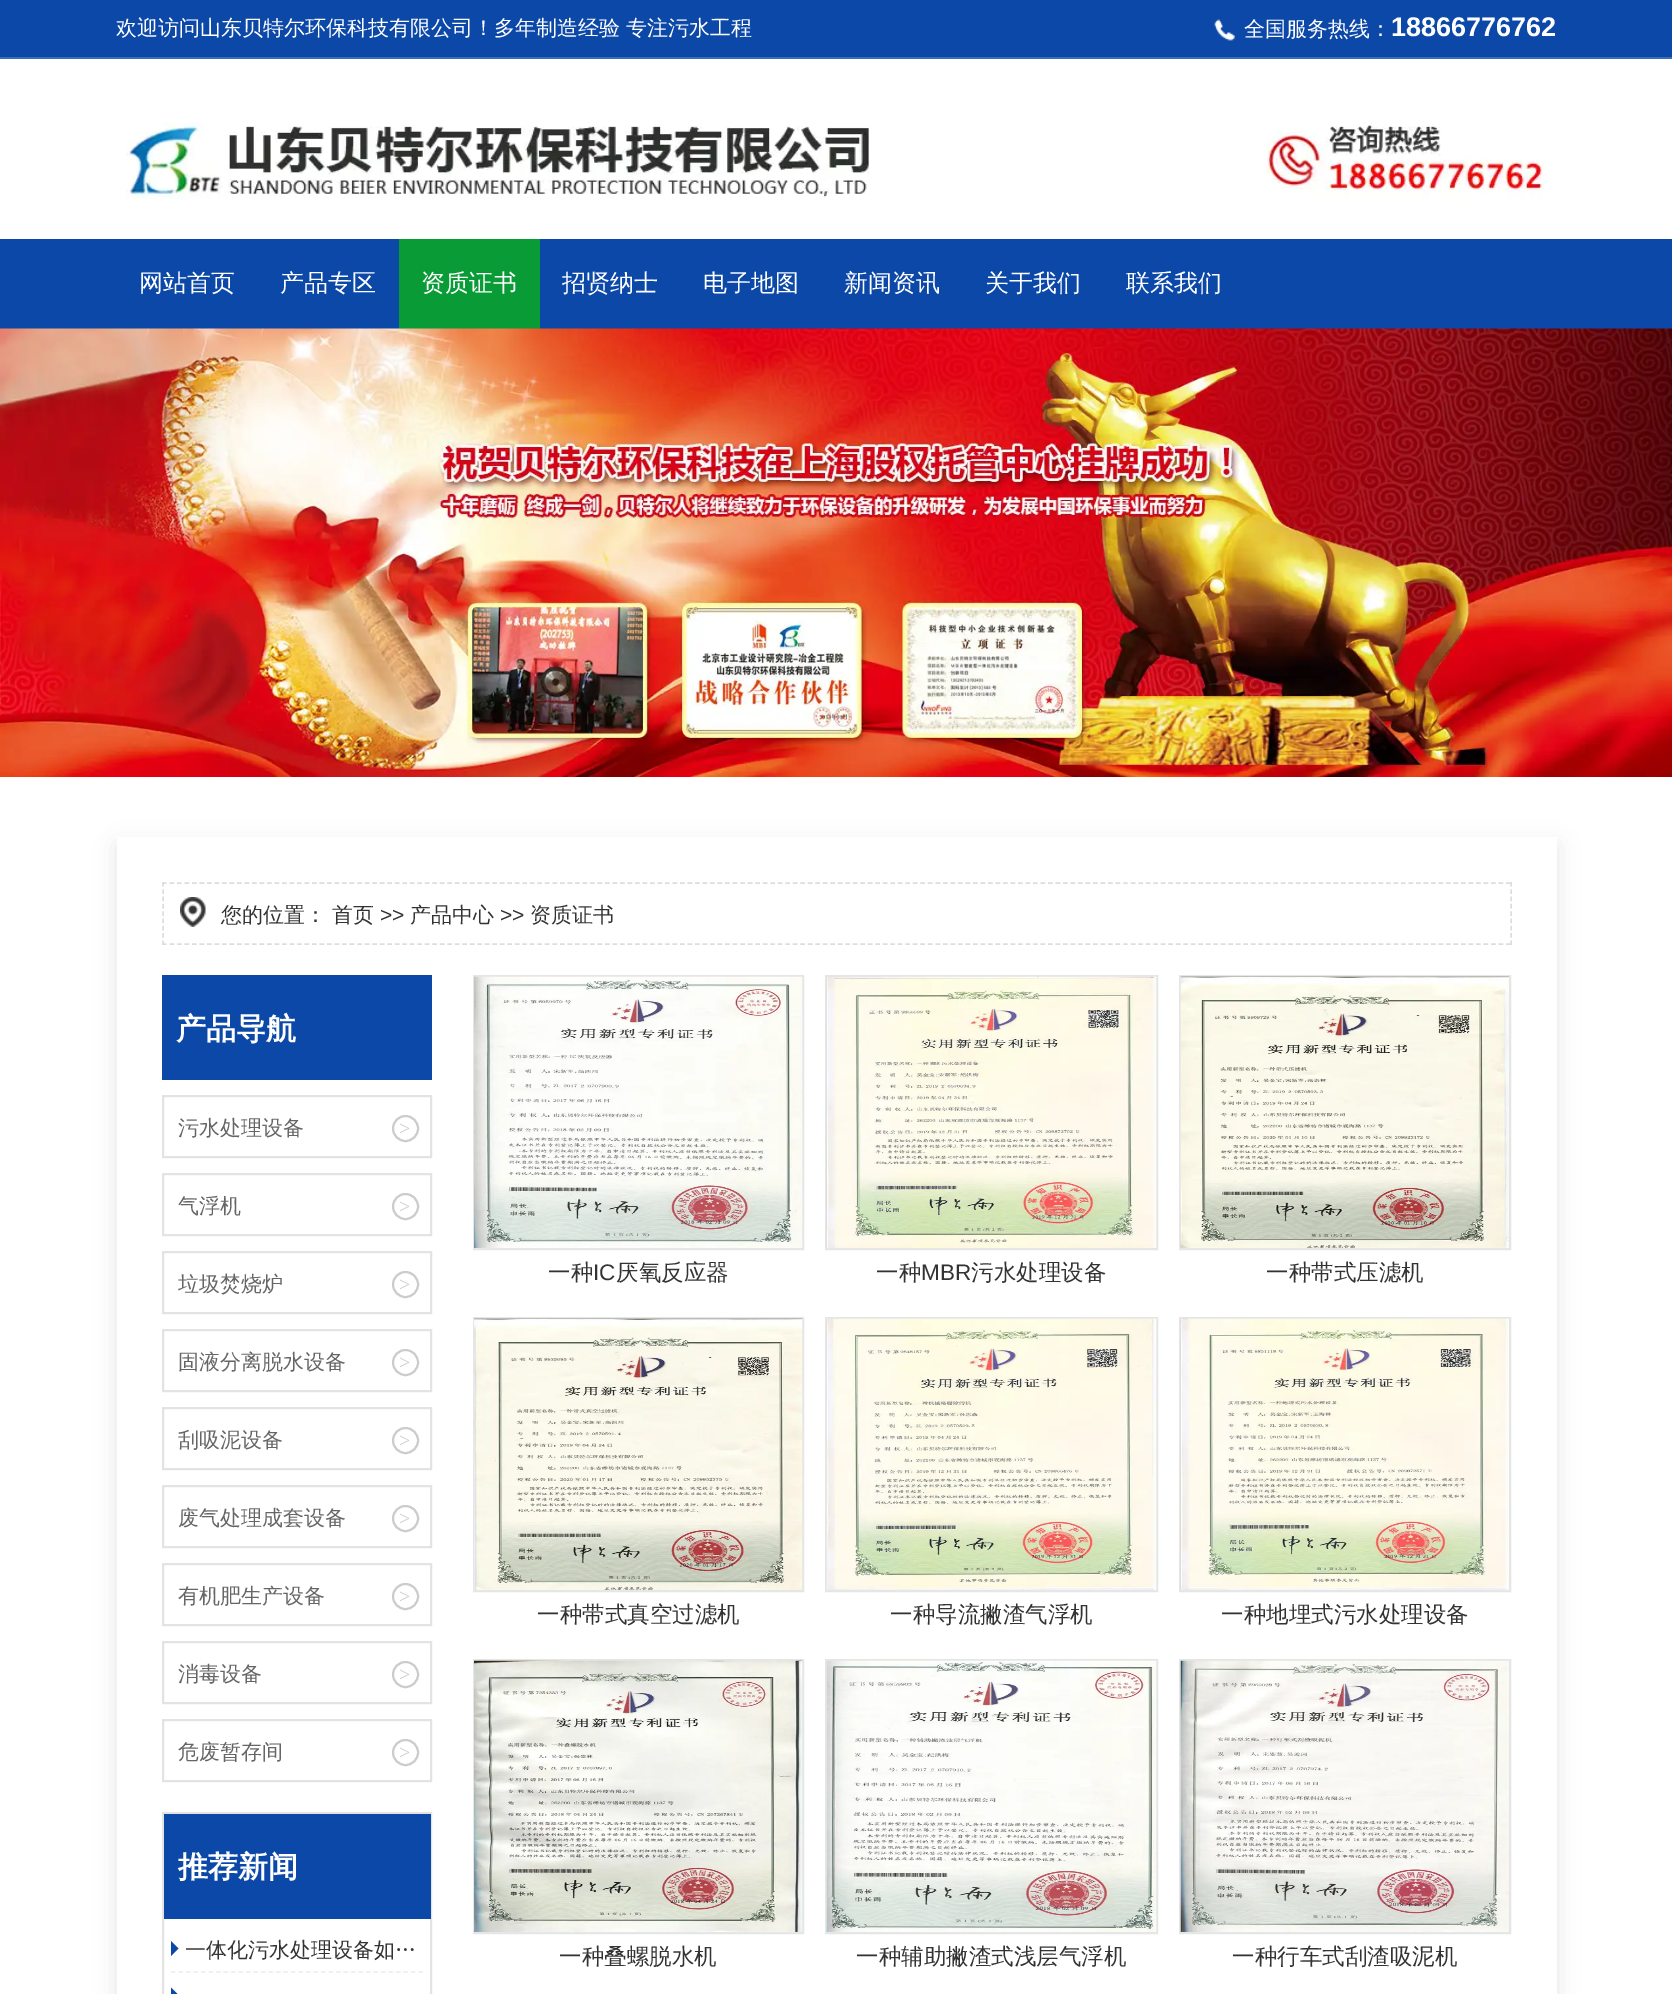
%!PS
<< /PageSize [1672 1994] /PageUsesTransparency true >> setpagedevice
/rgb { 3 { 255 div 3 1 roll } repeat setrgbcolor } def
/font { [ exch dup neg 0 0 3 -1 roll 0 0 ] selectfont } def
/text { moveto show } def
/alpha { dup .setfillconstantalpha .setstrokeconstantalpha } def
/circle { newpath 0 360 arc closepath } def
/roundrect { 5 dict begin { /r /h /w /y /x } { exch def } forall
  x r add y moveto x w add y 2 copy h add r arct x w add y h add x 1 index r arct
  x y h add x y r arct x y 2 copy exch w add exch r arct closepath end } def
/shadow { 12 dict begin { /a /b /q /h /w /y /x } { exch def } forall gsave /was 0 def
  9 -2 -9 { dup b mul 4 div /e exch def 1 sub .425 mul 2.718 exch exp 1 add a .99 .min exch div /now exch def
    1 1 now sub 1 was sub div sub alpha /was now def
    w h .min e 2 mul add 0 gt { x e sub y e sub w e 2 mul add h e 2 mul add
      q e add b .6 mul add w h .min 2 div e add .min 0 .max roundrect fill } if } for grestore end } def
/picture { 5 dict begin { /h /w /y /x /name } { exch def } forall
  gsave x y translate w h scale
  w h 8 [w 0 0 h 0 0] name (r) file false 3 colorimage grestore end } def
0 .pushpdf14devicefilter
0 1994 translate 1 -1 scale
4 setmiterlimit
255 255 255 rgb
0 0 1672 1994 rectfill
12 72 168 rgb
0 0 1672 57 rectfill
61 109 185 rgb
0 57 1672 2 rectfill
(img_01.rgb) 1214 19 21 22 picture
(img_02.rgb) 125 122 1421 77 picture
12 72 168 rgb
0 239 1672 90 rectfill
8 155 54 rgb
399 239 141 90 rectfill
(img_03.rgb) 0 328 1672 449 picture
gsave
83 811 moveto 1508 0 rlineto 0 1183 rlineto -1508 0 rlineto closepath 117 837 moveto 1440 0 rlineto 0 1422 rlineto -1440 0 rlineto closepath eoclip newpath
0 0 0 rgb
117 845 1440 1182 0 11 0.1 shadow
grestore
221 221 221 rgb
1.5 setlinewidth
[4.5 3.01] 0 setdash
162 883 moveto 1350 0 rlineto stroke
[4.5 2.82] 0 setdash
1511 882 moveto 0 63 rlineto stroke
[4.5 3.01] 0 setdash
162 944 moveto 1350 0 rlineto stroke
[4.5 2.82] 0 setdash
163 882 moveto 0 63 rlineto stroke
(img_04.rgb) 180 897 26 30 picture
12 72 168 rgb
162 975 270 105 rectfill
227 227 227 rgb
2 setlinewidth
[] 0 setdash
163 1096 268 61 rectstroke
204 204 204 rgb
405.5 1128.5 12.5 circle stroke
227 227 227 rgb
163 1174 268 61 rectstroke
204 204 204 rgb
405.5 1206.5 12.5 circle stroke
227 227 227 rgb
163 1252 268 61 rectstroke
204 204 204 rgb
405.5 1284.5 12.5 circle stroke
227 227 227 rgb
163 1330 268 61 rectstroke
204 204 204 rgb
405.5 1362.5 12.5 circle stroke
227 227 227 rgb
163 1408 268 61 rectstroke
204 204 204 rgb
405.5 1440.5 12.5 circle stroke
227 227 227 rgb
163 1486 268 61 rectstroke
204 204 204 rgb
405.5 1518.5 12.5 circle stroke
227 227 227 rgb
163 1564 268 61 rectstroke
204 204 204 rgb
405.5 1596.5 12.5 circle stroke
227 227 227 rgb
163 1642 268 61 rectstroke
204 204 204 rgb
405.5 1674.5 12.5 circle stroke
227 227 227 rgb
163 1720 268 61 rectstroke
204 204 204 rgb
405.5 1752.5 12.5 circle stroke
227 227 227 rgb
163 1813 268 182 rectstroke
12 72 168 rgb
164 1814 267 105 rectfill
238 238 238 rgb
1.5 setlinewidth
[4.5 3] 0 setdash
171 1972 moveto 252 0 rlineto stroke
12 72 168 rgb
171 1956 moveto 0 -15 rlineto 7.5 7.5 rlineto closepath fill
171 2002.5 moveto 0 -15 rlineto 7.5 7.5 rlineto closepath fill
229 230 230 rgb
2 setlinewidth
[] 0 setdash
474 976 329 273 rectstroke
(img_05.rgb) 474 976 329 272 picture
826 976 331 273 rectstroke
(img_06.rgb) 826 976 331 272 picture
1180 976 330 273 rectstroke
(img_07.rgb) 1180 976 329 272 picture
474 1318 329 273 rectstroke
(img_08.rgb) 474 1318 329 272 picture
826 1318 331 273 rectstroke
(img_09.rgb) 826 1318 331 272 picture
1180 1318 330 273 rectstroke
(img_10.rgb) 1180 1318 329 272 picture
474 1660 329 273 rectstroke
(img_11.rgb) 474 1660 329 272 picture
826 1660 331 273 rectstroke
(img_12.rgb) 826 1660 331 272 picture
1180 1660 330 273 rectstroke
(img_13.rgb) 1180 1660 329 272 picture
/WenQuanYiZenHei-Medium 21 font
255 255 255 rgb
(欢迎访问山东贝特尔环保科技有限公司！多年制造经验 专注污水工程) 116 35 text
(全国服务热线：) 1244 36 text
/LiberationSans-Bold 27 font
(18866776762) 1391 36 text
/WenQuanYiZenHei-Medium 24 font
(网站首页) 139 291 text
(产品专区) 280 291 text
(资质证书) 421 291 text
(招贤纳士) 562 291 text
(电子地图) 703 291 text
(新闻资讯) 844 291 text
(关于我们) 985 291 text
(联系我们) 1126 291 text
/WenQuanYiZenHei-Medium 21 font
51 51 51 rgb
(您的位置：) 221 922 text
(首页) 332 922 text
/LiberationSans-Regular 21 font
(>>) 380 922 text
/WenQuanYiZenHei-Medium 21 font
(产品中心) 410 922 text
/LiberationSans-Regular 21 font
(>>) 500 922 text
/WenQuanYiZenHei-Medium 21 font
(资质证书) 530 922 text
/WenQuanYiZenHei-Bold 30 font
255 255 255 rgb
(产品导航) 176 1039 text
/WenQuanYiZenHei-Medium 21 font
102 102 102 rgb
(污水处理设备) 178 1135 text
/LiberationSerif-Regular 20 font
204 204 204 rgb
(>) 399 1135 text
/WenQuanYiZenHei-Medium 21 font
102 102 102 rgb
(气浮机) 178 1213 text
/LiberationSerif-Regular 20 font
204 204 204 rgb
(>) 399 1213 text
/WenQuanYiZenHei-Medium 21 font
102 102 102 rgb
(垃圾焚烧炉) 178 1291 text
/LiberationSerif-Regular 20 font
204 204 204 rgb
(>) 399 1291 text
/WenQuanYiZenHei-Medium 21 font
102 102 102 rgb
(固液分离脱水设备) 178 1369 text
/LiberationSerif-Regular 20 font
204 204 204 rgb
(>) 399 1369 text
/WenQuanYiZenHei-Medium 21 font
102 102 102 rgb
(刮吸泥设备) 178 1447 text
/LiberationSerif-Regular 20 font
204 204 204 rgb
(>) 399 1447 text
/WenQuanYiZenHei-Medium 21 font
102 102 102 rgb
(废气处理成套设备) 178 1525 text
/LiberationSerif-Regular 20 font
204 204 204 rgb
(>) 399 1525 text
/WenQuanYiZenHei-Medium 21 font
102 102 102 rgb
(有机肥生产设备) 178 1603 text
/LiberationSerif-Regular 20 font
204 204 204 rgb
(>) 399 1603 text
/WenQuanYiZenHei-Medium 21 font
102 102 102 rgb
(消毒设备) 178 1681 text
/LiberationSerif-Regular 20 font
204 204 204 rgb
(>) 399 1681 text
/WenQuanYiZenHei-Medium 21 font
102 102 102 rgb
(危废暂存间) 178 1759 text
/LiberationSerif-Regular 20 font
204 204 204 rgb
(>) 399 1759 text
/WenQuanYiZenHei-Bold 30 font
255 255 255 rgb
(推荐新闻) 178 1877 text
/WenQuanYiZenHei-Medium 21 font
51 51 51 rgb
(一体化污水处理设备如…) 185 1957 text
/WenQuanYiZenHei-Medium 22.5 font
(一种) 548 1280 text
/LiberationSans-Regular 22.5 font
(IC) 593 1280 text
/WenQuanYiZenHei-Medium 22.5 font
(厌氧反应器) 616 1280 text
(一种) 876 1280 text
/LiberationSans-Regular 22.5 font
(MBR) 921 1280 text
/WenQuanYiZenHei-Medium 22.5 font
(污水处理设备) 971 1280 text
(一种带式压滤机) 1266 1280 text
(一种带式真空过滤机) 537 1622 text
(一种导流撇渣气浮机) 890 1622 text
(一种地埋式污水处理设备) 1221 1622 text
(一种叠螺脱水机) 559 1964 text
(一种辅助撇渣式浅层气浮机) 856 1964 text
(一种行车式刮渣吸泥机) 1232 1964 text
.poppdf14devicefilter showpage
